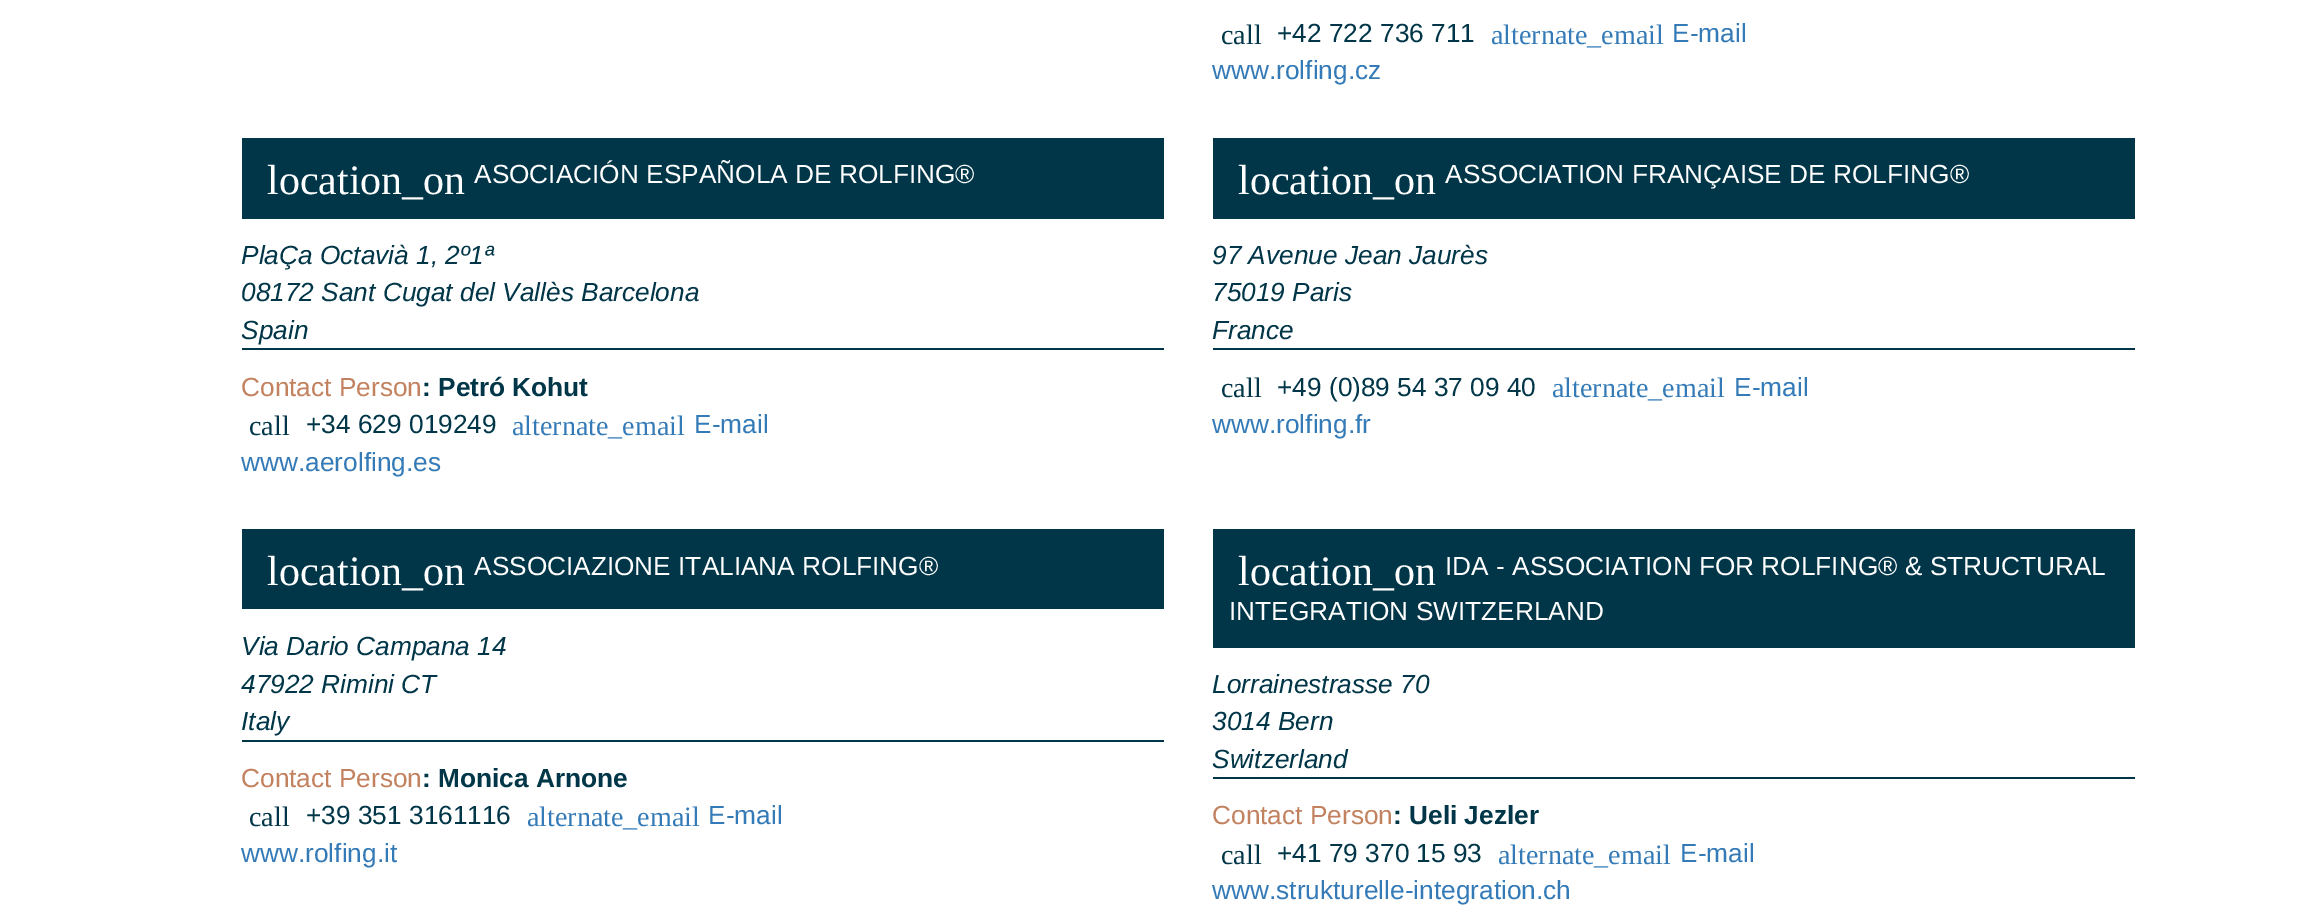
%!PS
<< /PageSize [2321 909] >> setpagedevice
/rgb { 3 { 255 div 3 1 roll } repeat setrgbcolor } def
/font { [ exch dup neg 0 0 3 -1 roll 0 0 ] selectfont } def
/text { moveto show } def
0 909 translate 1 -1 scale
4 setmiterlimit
255 255 255 rgb
0 0 2321 909 rectfill
0 54 72 rgb
242 138 922 81 rectfill
242 348 922 2 rectfill
1213 138 922 81 rectfill
1213 348 922 2 rectfill
242 529 922 80 rectfill
242 740 922 2 rectfill
1213 529 922 119 rectfill
1213 777 922 2 rectfill
/LiberationSerif-Regular 28 font
(call) 1221 44 text
/LiberationSans-Regular 26.25 font
(+42 722 736 711) 1277 42 text
/LiberationSerif-Regular 28 font
51 122 183 rgb
(alternate_email) 1491 44 text
/LiberationSans-Regular 26.25 font
(E-mail) 1672 42 text
(www.rolfing.cz) 1212 79 text
/LiberationSerif-Regular 42 font
255 255 255 rgb
(location_on) 267 194 text
/LiberationSans-Regular 26.25 font
(ASOCIACIÓN ESPAÑOLA DE ROLFING®) 474 183 text
/LiberationSans-Italic 26.25 font
0 54 72 rgb
(PlaÇa Octavià 1, 2º1ª) 241 264 text
(08172 Sant Cugat del Vallès Barcelona) 241 301 text
(Spain) 241 339 text
/LiberationSans-Regular 26.25 font
195 130 95 rgb
(Contact Person) 241 396 text
/LiberationSans-Bold 26.25 font
0 54 72 rgb
(: Petró Kohut) 422 396 text
/LiberationSerif-Regular 28 font
(call) 249 435 text
/LiberationSans-Regular 26.25 font
(+34 629 019249) 306 433 text
/LiberationSerif-Regular 28 font
51 122 183 rgb
(alternate_email) 512 435 text
/LiberationSans-Regular 26.25 font
(E-mail) 694 433 text
(www.aerolfing.es) 241 471 text
/LiberationSerif-Regular 42 font
255 255 255 rgb
(location_on) 1238 194 text
/LiberationSans-Regular 26.25 font
(ASSOCIATION FRANÇAISE DE ROLFING®) 1445 183 text
/LiberationSans-Italic 26.25 font
0 54 72 rgb
(97 Avenue Jean Jaurès) 1212 264 text
(75019 Paris) 1212 301 text
(France) 1212 339 text
/LiberationSerif-Regular 28 font
(call) 1221 397 text
/LiberationSans-Regular 26.25 font
(+49 \(0\)89 54 37 09 40) 1277 396 text
/LiberationSerif-Regular 28 font
51 122 183 rgb
(alternate_email) 1552 397 text
/LiberationSans-Regular 26.25 font
(E-mail) 1734 396 text
(www.rolfing.fr) 1212 433 text
/LiberationSerif-Regular 42 font
255 255 255 rgb
(location_on) 267 585 text
/LiberationSans-Regular 26.25 font
(ASSOCIAZIONE ITALIANA ROLFING®) 474 575 text
/LiberationSans-Italic 26.25 font
0 54 72 rgb
(Via Dario Campana 14) 241 655 text
(47922 Rimini CT) 241 693 text
(Italy) 241 730 text
/LiberationSans-Regular 26.25 font
195 130 95 rgb
(Contact Person) 241 787 text
/LiberationSans-Bold 26.25 font
0 54 72 rgb
(: Monica Arnone) 422 787 text
/LiberationSerif-Regular 28 font
(call) 249 826 text
/LiberationSans-Regular 26.25 font
(+39 351 3161116) 306 824 text
/LiberationSerif-Regular 28 font
51 122 183 rgb
(alternate_email) 527 826 text
/LiberationSans-Regular 26.25 font
(E-mail) 708 824 text
(www.rolfing.it) 241 862 text
/LiberationSerif-Regular 42 font
255 255 255 rgb
(location_on) 1238 585 text
/LiberationSans-Regular 26.25 font
(IDA - ASSOCIATION FOR ROLFING® & STRUCTURAL) 1445 575 text
(INTEGRATION SWITZERLAND) 1229 620 text
/LiberationSans-Italic 26.25 font
0 54 72 rgb
(Lorrainestrasse 70) 1212 693 text
(3014 Bern) 1212 730 text
(Switzerland) 1212 768 text
/LiberationSans-Regular 26.25 font
195 130 95 rgb
(Contact Person) 1212 824 text
/LiberationSans-Bold 26.25 font
0 54 72 rgb
(: Ueli Jezler) 1393 824 text
/LiberationSerif-Regular 28 font
(call) 1221 864 text
/LiberationSans-Regular 26.25 font
(+41 79 370 15 93) 1277 862 text
/LiberationSerif-Regular 28 font
51 122 183 rgb
(alternate_email) 1498 864 text
/LiberationSans-Regular 26.25 font
(E-mail) 1680 862 text
(www.strukturelle-integration.ch) 1212 899 text
showpage
